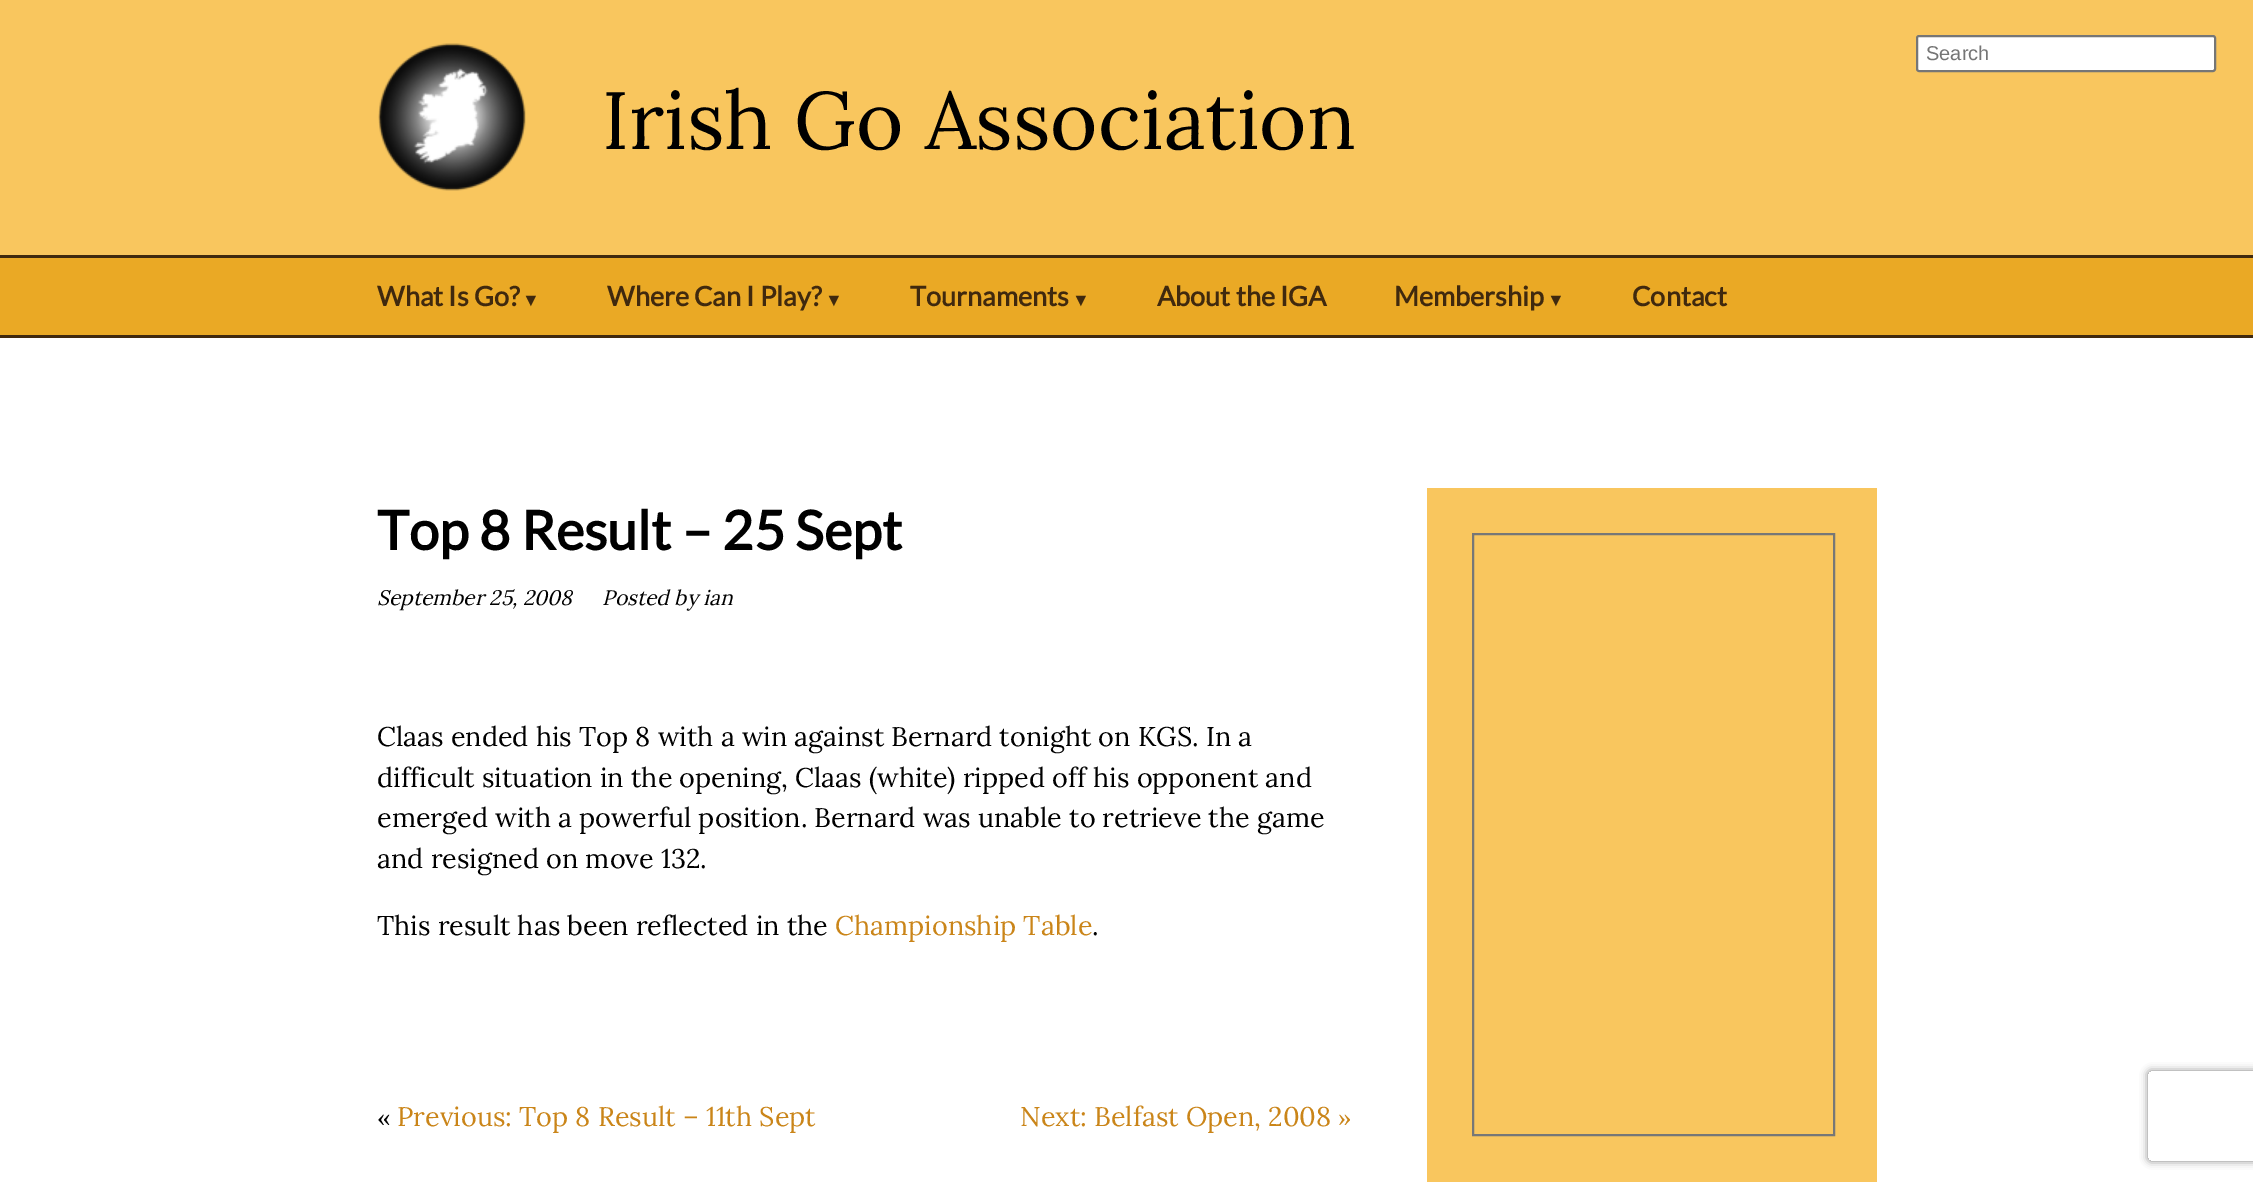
%!PS
<< /PageSize [2253 1182] /PageUsesTransparency true >> setpagedevice
/rgb { 3 { 255 div 3 1 roll } repeat setrgbcolor } def
/font { [ exch dup neg 0 0 3 -1 roll 0 0 ] selectfont } def
/text { moveto show } def
/alpha { dup .setfillconstantalpha .setstrokeconstantalpha } def
/roundrect { 5 dict begin { /r /h /w /y /x } { exch def } forall
  x r add y moveto x w add y 2 copy h add r arct x w add y h add x 1 index r arct
  x y h add x y r arct x y 2 copy exch w add exch r arct closepath end } def
/shadow { 12 dict begin { /a /b /q /h /w /y /x } { exch def } forall gsave /was 0 def
  9 -2 -9 { dup b mul 4 div /e exch def 1 sub .425 mul 2.718 exch exp 1 add a .99 .min exch div /now exch def
    1 1 now sub 1 was sub div sub alpha /was now def
    w h .min e 2 mul add 0 gt { x e sub y e sub w e 2 mul add h e 2 mul add
      q e add b .6 mul add w h .min 2 div e add .min 0 .max roundrect fill } if } for grestore end } def
/picture { 5 dict begin { /h /w /y /x /name } { exch def } forall
  gsave x y translate w h scale
  w h 8 [w 0 0 h 0 0] name (r) file false 3 colorimage grestore end } def
0 .pushpdf14devicefilter
0 1182 translate 1 -1 scale
4 setmiterlimit
255 255 255 rgb
0 0 2253 1182 rectfill
249 198 94 rgb
0 0 2253 255 rectfill
(img_01.rgb) 378 43 148 148 picture
255 255 255 rgb
1917 36 298 35 2 roundrect gsave fill grestore
118 118 118 rgb
2 setlinewidth
stroke
234 169 37 rgb
0 258 2253 77 rectfill
64 41 14 rgb
0 255 2253 3 rectfill
0 335 2253 3 rectfill
249 198 94 rgb
1427 488 450 694 rectfill
119 119 119 rgb
1473 534 361 601 rectstroke
gsave
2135 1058 moveto 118 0 rlineto 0 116 rlineto -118 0 rlineto closepath 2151 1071 moveto 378 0 rlineto 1.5 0 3 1.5 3 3 rcurveto 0 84 rlineto 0 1.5 -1.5 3 -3 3 rcurveto -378 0 rlineto -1.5 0 -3 -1.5 -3 -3 rcurveto 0 -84 rlineto 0 -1.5 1.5 -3 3 -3 rcurveto closepath eoclip newpath
128 128 128 rgb
2148 1071 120 90 3 4 1 shadow
grestore
/LiberationSans-Regular 20 font
117 117 117 rgb
(Search) 1926 60 text
/Lora-Regular 81 font
0 0 0 rgb
(Irish Go Association) 602 149 text
/Lato-Bold 27 font
64 41 14 rgb
(What Is Go?) 377 306 text
/LiberationSans-Bold 18 font
(▼) 522 306 text
/Lato-Bold 27 font
(Where Can I Play?) 607 306 text
/LiberationSans-Bold 18 font
(▼) 825 306 text
/Lato-Bold 27 font
(Tournaments) 910 306 text
/LiberationSans-Bold 18 font
(▼) 1072 306 text
/Lato-Bold 27 font
(About the IGA) 1157 306 text
(Membership) 1394 306 text
/LiberationSans-Bold 18 font
(▼) 1547 306 text
/Lato-Bold 27 font
(Contact) 1632 306 text
/Lato-Bold 54 font
0 0 0 rgb
(Top 8 Result – 25 Sept) 377 550 text
/Lora-Italic 21 font
(September 25, 2008) 377 605 text
(Posted by ian) 602 605 text
/Lora-Regular 27 font
(Claas ended his Top 8 with a win against Bernard tonight on KGS. In a) 377 746 text
(difficult situation in the opening, Claas \(white\) ripped off his opponent and) 377 787 text
(emerged with a powerful position. Bernard was unable to retrieve the game) 377 827 text
(and resigned on move 132.) 377 868 text
(This result has been reflected in the) 377 935 text
202 133 25 rgb
(Championship Table) 835 935 text
0 0 0 rgb
(.) 1092 935 text
/LiberationSerif-Regular 27 font
(«) 377 1126 text
/Lora-Regular 27 font
202 133 25 rgb
(Previous: Top 8 Result – 11th Sept) 397 1126 text
(Next: Belfast Open, 2008) 1020 1126 text
/LiberationSerif-Regular 27 font
(») 1338 1126 text
.poppdf14devicefilter showpage
